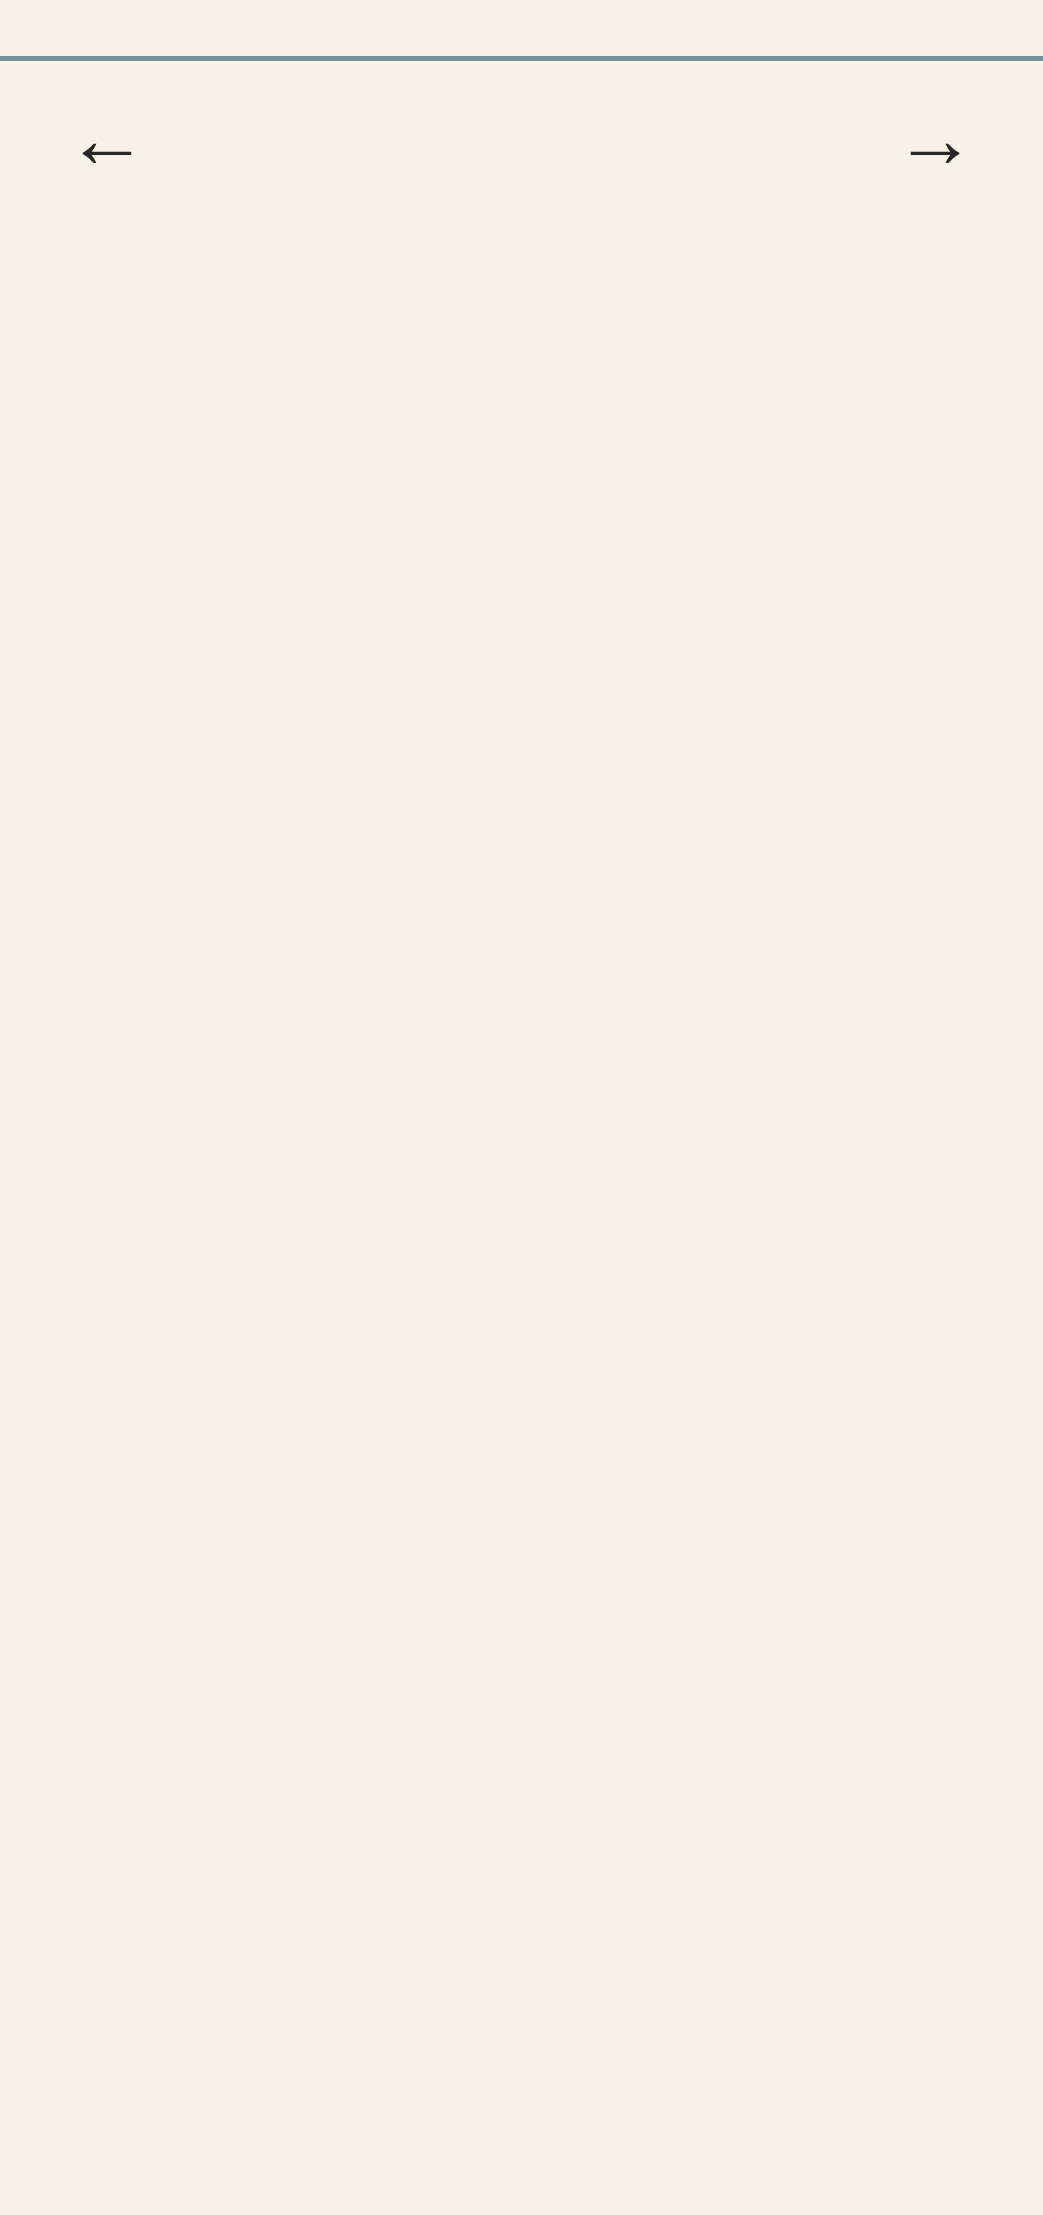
%!PS
<< /PageSize [1043 2215] >> setpagedevice
/rgb { 3 { 255 div 3 1 roll } repeat setrgbcolor } def
/font { [ exch dup neg 0 0 3 -1 roll 0 0 ] selectfont } def
/text { moveto show } def
0 2215 translate 1 -1 scale
4 setmiterlimit
246 242 232 rgb
0 0 1043 2215 rectfill
118 145 157 rgb
0 56 1043 5 rectfill
/LiberationSans-Regular 82 font
39 39 39 rgb
(←) 66 167 text
(→) 894 167 text
showpage
